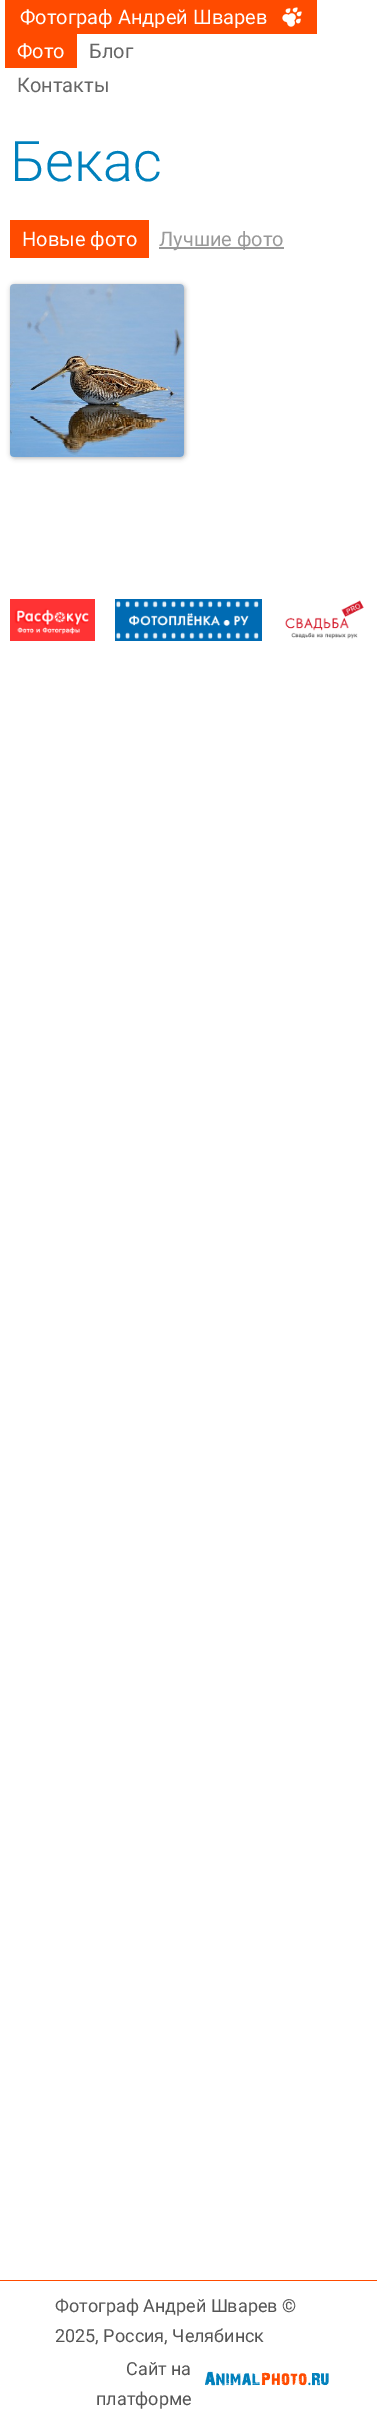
%!PS
<< /PageSize [377 2421] /PageUsesTransparency true >> setpagedevice
/rgb { 3 { 255 div 3 1 roll } repeat setrgbcolor } def
/font { [ exch dup neg 0 0 3 -1 roll 0 0 ] selectfont } def
/text { moveto show } def
/alpha { dup .setfillconstantalpha .setstrokeconstantalpha } def
/roundrect { 5 dict begin { /r /h /w /y /x } { exch def } forall
  x r add y moveto x w add y 2 copy h add r arct x w add y h add x 1 index r arct
  x y h add x y r arct x y 2 copy exch w add exch r arct closepath end } def
/shadow { 12 dict begin { /a /b /q /h /w /y /x } { exch def } forall gsave /was 0 def
  9 -2 -9 { dup b mul 4 div /e exch def 1 sub .425 mul 2.718 exch exp 1 add a .99 .min exch div /now exch def
    1 1 now sub 1 was sub div sub alpha /was now def
    w h .min e 2 mul add 0 gt { x e sub y e sub w e 2 mul add h e 2 mul add
      q e add b .6 mul add w h .min 2 div e add .min 0 .max roundrect fill } if } for grestore end } def
/picture { 5 dict begin { /h /w /y /x /name } { exch def } forall
  gsave x y translate w h scale
  w h 8 [w 0 0 h 0 0] name (r) file false 3 colorimage grestore end } def
0 .pushpdf14devicefilter
0 2421 translate 1 -1 scale
4 setmiterlimit
255 255 255 rgb
0 0 377 2421 rectfill
255 75 0 rgb
5 0 312 34 rectfill
(img_01.rgb) 282 7 20 20 picture
5 34 72 34 rectfill
10 220 139 38 rectfill
153 153 153 rgb
159 247 125 2 rectfill
0 0 0 rgb
11 285 174 173 4 2.5 0.3 shadow
(img_02.rgb) 10 284 174 173 picture
(img_03.rgb) 10 599 85 42 picture
(img_04.rgb) 115 599 147 42 picture
(img_05.rgb) 285 600 79 39 picture
255 75 0 rgb
0 2280 377 1 rectfill
(img_06.rgb) 205 2371 124 15 picture
/Roboto-Regular 20 font
255 255 255 rgb
(Фотограф Андрей Шварев) 20 24 text
(Фото) 17 58 text
102 102 102 rgb
(Блог) 89 58 text
(Контакты) 17 92 text
/Roboto-Light 56 font
0 128 188 rgb
(Бекас) 10 181 text
/Roboto-Regular 20 font
255 255 255 rgb
(Новые фото) 22 246 text
153 153 153 rgb
(Лучшие фото) 159 246 text
/Roboto-Regular 18 font
85 85 85 rgb
(Фотограф Андрей Шварев ©) 55 2312 text
(2025, Россия, Челябинск) 55 2342 text
(Сайт на) 126 2375 text
(платформе) 96 2405 text
.poppdf14devicefilter showpage
